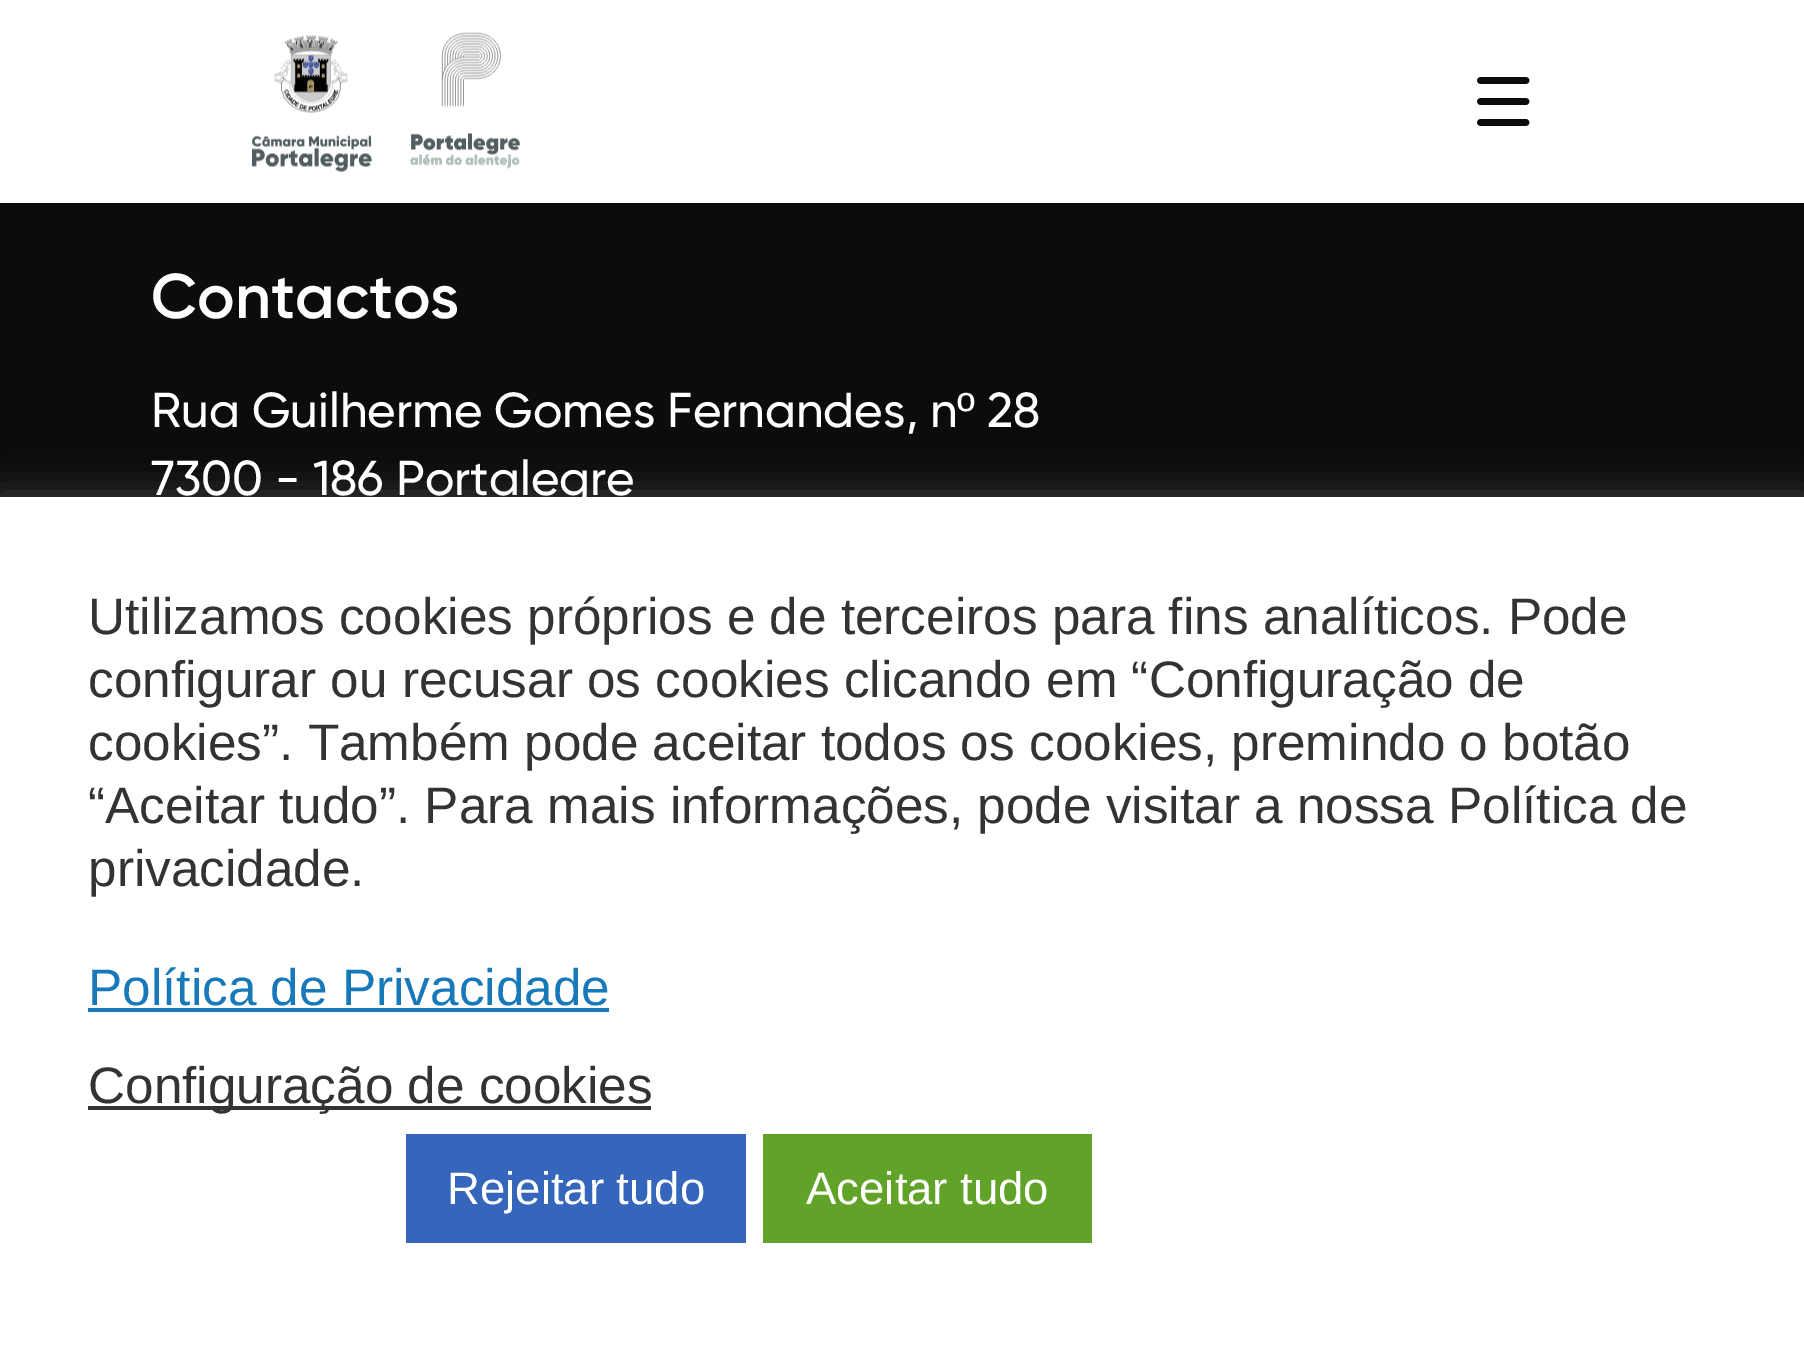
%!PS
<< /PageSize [1804 1345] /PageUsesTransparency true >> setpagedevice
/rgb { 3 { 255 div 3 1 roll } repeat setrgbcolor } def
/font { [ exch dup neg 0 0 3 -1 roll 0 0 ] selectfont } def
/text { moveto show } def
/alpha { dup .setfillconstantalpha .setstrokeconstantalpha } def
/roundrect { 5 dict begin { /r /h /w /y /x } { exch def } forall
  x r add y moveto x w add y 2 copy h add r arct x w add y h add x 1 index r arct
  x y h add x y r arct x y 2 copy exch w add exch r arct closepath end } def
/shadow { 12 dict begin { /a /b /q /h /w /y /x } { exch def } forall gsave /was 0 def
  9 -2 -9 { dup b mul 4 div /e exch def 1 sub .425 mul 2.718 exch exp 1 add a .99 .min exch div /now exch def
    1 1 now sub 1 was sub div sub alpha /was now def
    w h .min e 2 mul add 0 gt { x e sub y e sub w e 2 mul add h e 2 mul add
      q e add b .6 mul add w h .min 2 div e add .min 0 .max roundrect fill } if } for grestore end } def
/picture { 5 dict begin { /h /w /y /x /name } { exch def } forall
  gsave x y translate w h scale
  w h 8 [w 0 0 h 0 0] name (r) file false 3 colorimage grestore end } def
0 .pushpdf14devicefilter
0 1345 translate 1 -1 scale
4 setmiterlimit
12 12 12 rgb
0 0 1804 1345 rectfill
255 255 255 rgb
0 0 1804 203 rectfill
(img_01.rgb) 252 32 268 140 picture
(img_02.rgb) 1477 77 53 49 picture
172 171 171 rgb
0 494 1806 850 0 17.5 0.3 shadow
255 255 255 rgb
0 497 1804 848 rectfill
23 121 186 rgb
88 1008 521 4 rectfill
51 51 51 rgb
88 1106 563 4 rectfill
53 102 187 rgb
406 1134 340 109 rectfill
97 162 41 rgb
763 1134 329 109 rectfill
/Gilroy-SemiBold 63 font
255 255 255 rgb
(Contactos) 151 318 text
/Gilroy-Medium 49 font
(Rua Guilherme Gomes Fernandes, n) 151 427 text
/LiberationSans-Regular 49 font
(º) 957 427 text
/Gilroy-Medium 49 font
(28) 987 427 text
(7300 - 186 Portalegre) 151 495 text
/LiberationSans-Regular 51.3 font
51 51 51 rgb
(Utilizamos cookies próprios e de terceiros para fins analíticos. Pode) 88 634 text
(configurar ou recusar os cookies clicando em “Configuração de) 88 697 text
(cookies”. Também pode aceitar todos os cookies, premindo o botão) 88 760 text
(“Aceitar tudo”. Para mais informações, pode visitar a nossa Política de) 88 823 text
(privacidade.) 88 886 text
23 121 186 rgb
(Política de Privacidade) 88 1005 text
51 51 51 rgb
(Configuração de cookies) 88 1103 text
/LiberationSans-Regular 45.5 font
255 255 255 rgb
(Rejeitar tudo) 447 1204 text
(Aceitar tudo) 806 1204 text
.poppdf14devicefilter showpage
